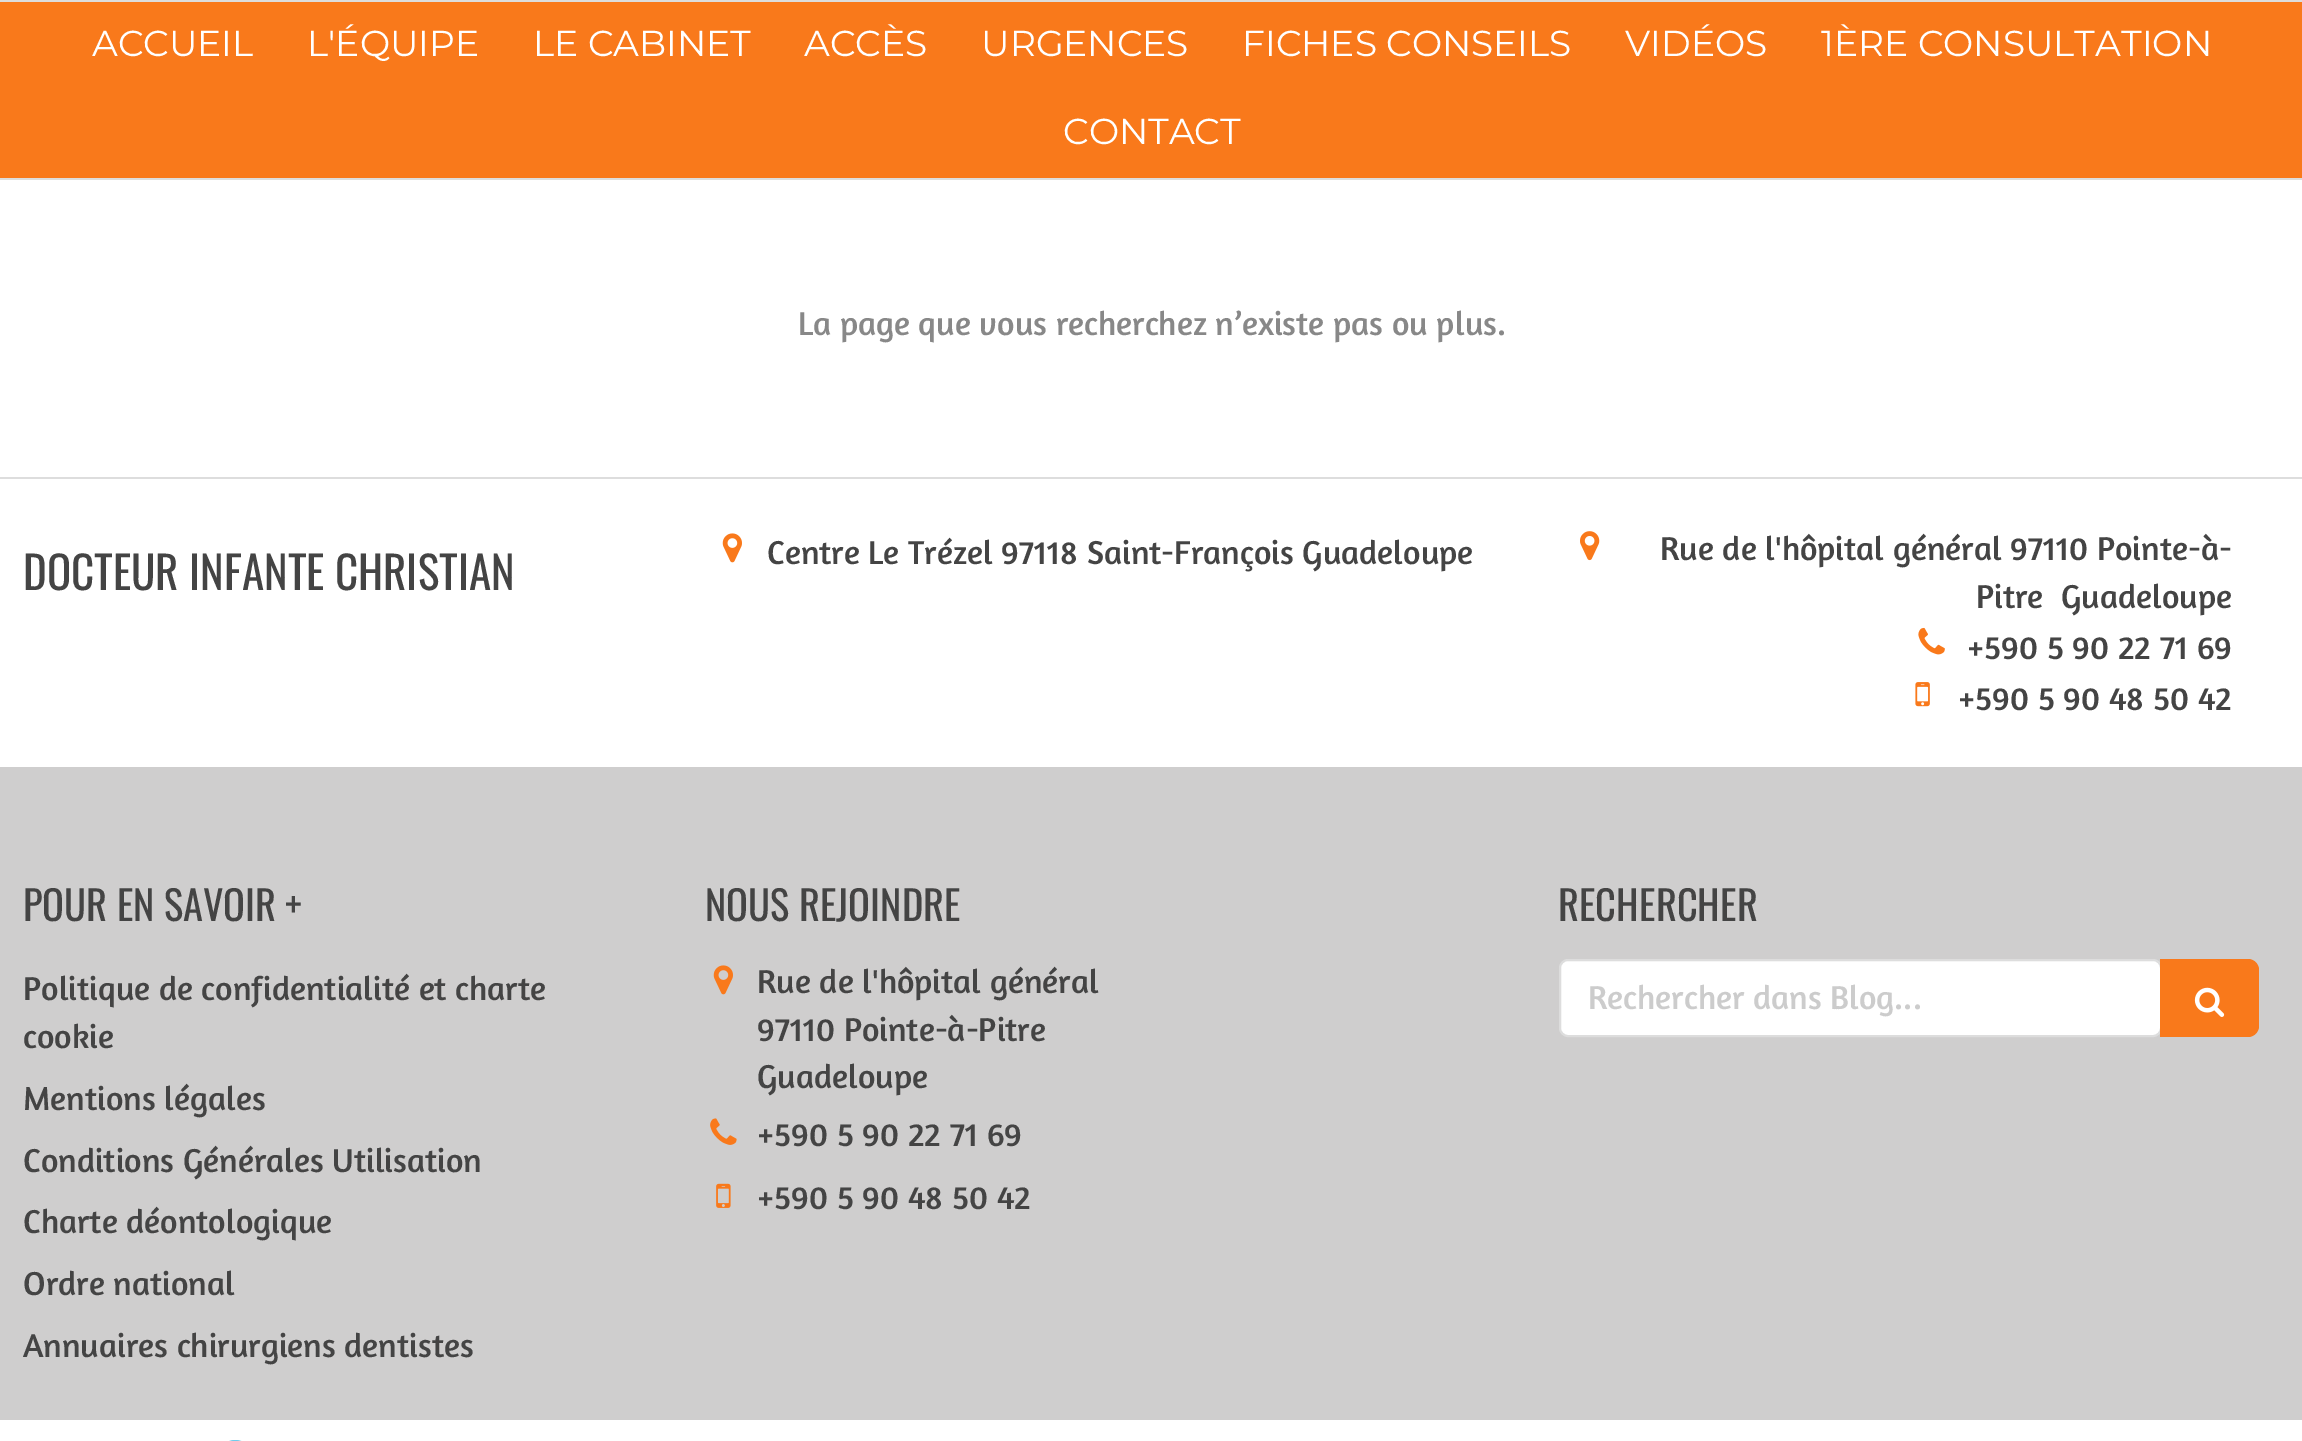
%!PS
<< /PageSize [2302 1441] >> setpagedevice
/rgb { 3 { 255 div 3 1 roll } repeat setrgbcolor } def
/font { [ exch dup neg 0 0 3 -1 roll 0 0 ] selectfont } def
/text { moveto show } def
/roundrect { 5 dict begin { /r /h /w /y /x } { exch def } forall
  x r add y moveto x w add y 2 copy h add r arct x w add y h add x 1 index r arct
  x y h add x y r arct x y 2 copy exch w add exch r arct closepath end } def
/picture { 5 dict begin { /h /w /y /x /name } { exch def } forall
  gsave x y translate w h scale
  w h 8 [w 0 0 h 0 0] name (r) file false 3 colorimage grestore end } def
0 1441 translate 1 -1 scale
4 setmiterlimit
255 255 255 rgb
0 0 2302 1441 rectfill
249 121 27 rgb
0 2 2302 176 rectfill
221 221 221 rgb
0 0 2302 2 rectfill
0 178 2302 2 rectfill
0 477 2302 2 rectfill
(img_01.rgb) 722 533 20 30 picture
(img_02.rgb) 1580 531 20 30 picture
(img_03.rgb) 1918 627 27 28 picture
(img_04.rgb) 1915 682 15 25 picture
207 206 206 rgb
0 767 2302 653 rectfill
(img_05.rgb) 713 965 20 30 picture
(img_06.rgb) 710 1118 27 27 picture
(img_07.rgb) 716 1183 15 25 picture
255 255 255 rgb
1560 960 601 76 8 roundrect gsave fill grestore
221 221 221 rgb
2 setlinewidth
stroke
249 121 27 rgb
2160 959 moveto 88 0 rlineto 6 0 11 5 11 11 rcurveto 0 56 rlineto 0 6 -5 11 -11 11 rcurveto -88 0 rlineto closepath fill
(img_08.rgb) 2194 987 31 30 picture
(img_09.rgb) 229 1440 13 1 picture
/Montserrat-Regular 36 font
255 255 255 rgb
(ACCUEIL) 92 56 text
(L'ÉQUIPE) 307 56 text
(LE CABINET) 533 56 text
(ACCÈS) 804 56 text
(URGENCES) 981 56 text
(FICHES CONSEILS) 1242 56 text
(VIDÉOS) 1625 56 text
(1ÈRE CONSULTATION) 1821 56 text
(CONTACT) 1063 144 text
/Amaranth-Regular 33.75 font
136 136 136 rgb
(La page que vous recherchez n’existe pas ou plus.) 798 335 text
/Oswald-Regular 45 font
68 68 68 rgb
(DOCTEUR INFANTE CHRISTIAN) 23 590 text
/Amaranth-Regular 33.75 font
(Centre Le Trézel 97118 Saint-François Guadeloupe) 767 564 text
(Rue de l'hôpital général 97110 Pointe-à-) 1660 560 text
(Pitre) 1976 608 text
(Guadeloupe) 2061 608 text
(+590 5 90 22 71 69) 1967 659 text
(+590 5 90 48 50 42) 1958 710 text
/Oswald-Regular 40.5 font
(POUR EN SAVOIR +) 23 921 text
/Amaranth-Regular 33.75 font
(Politique de confidentialité et charte) 23 1000 text
(cookie) 23 1048 text
(Mentions légales) 23 1110 text
(Conditions Générales Utilisation) 23 1172 text
(Charte déontologique) 23 1233 text
(Ordre national) 23 1295 text
(Annuaires chirurgiens dentistes) 23 1357 text
/Oswald-Regular 40.5 font
(NOUS REJOINDRE) 705 921 text
/Amaranth-Regular 33.75 font
(Rue de l'hôpital général) 757 993 text
(97110 Pointe-à-Pitre) 757 1041 text
(Guadeloupe) 757 1088 text
(+590 5 90 22 71 69) 757 1146 text
(+590 5 90 48 50 42) 757 1209 text
/Oswald-Regular 40.5 font
(RECHERCHER) 1558 921 text
/Amaranth-Regular 33.75 font
204 204 204 rgb
(Rechercher dans Blog...) 1588 1009 text
showpage
